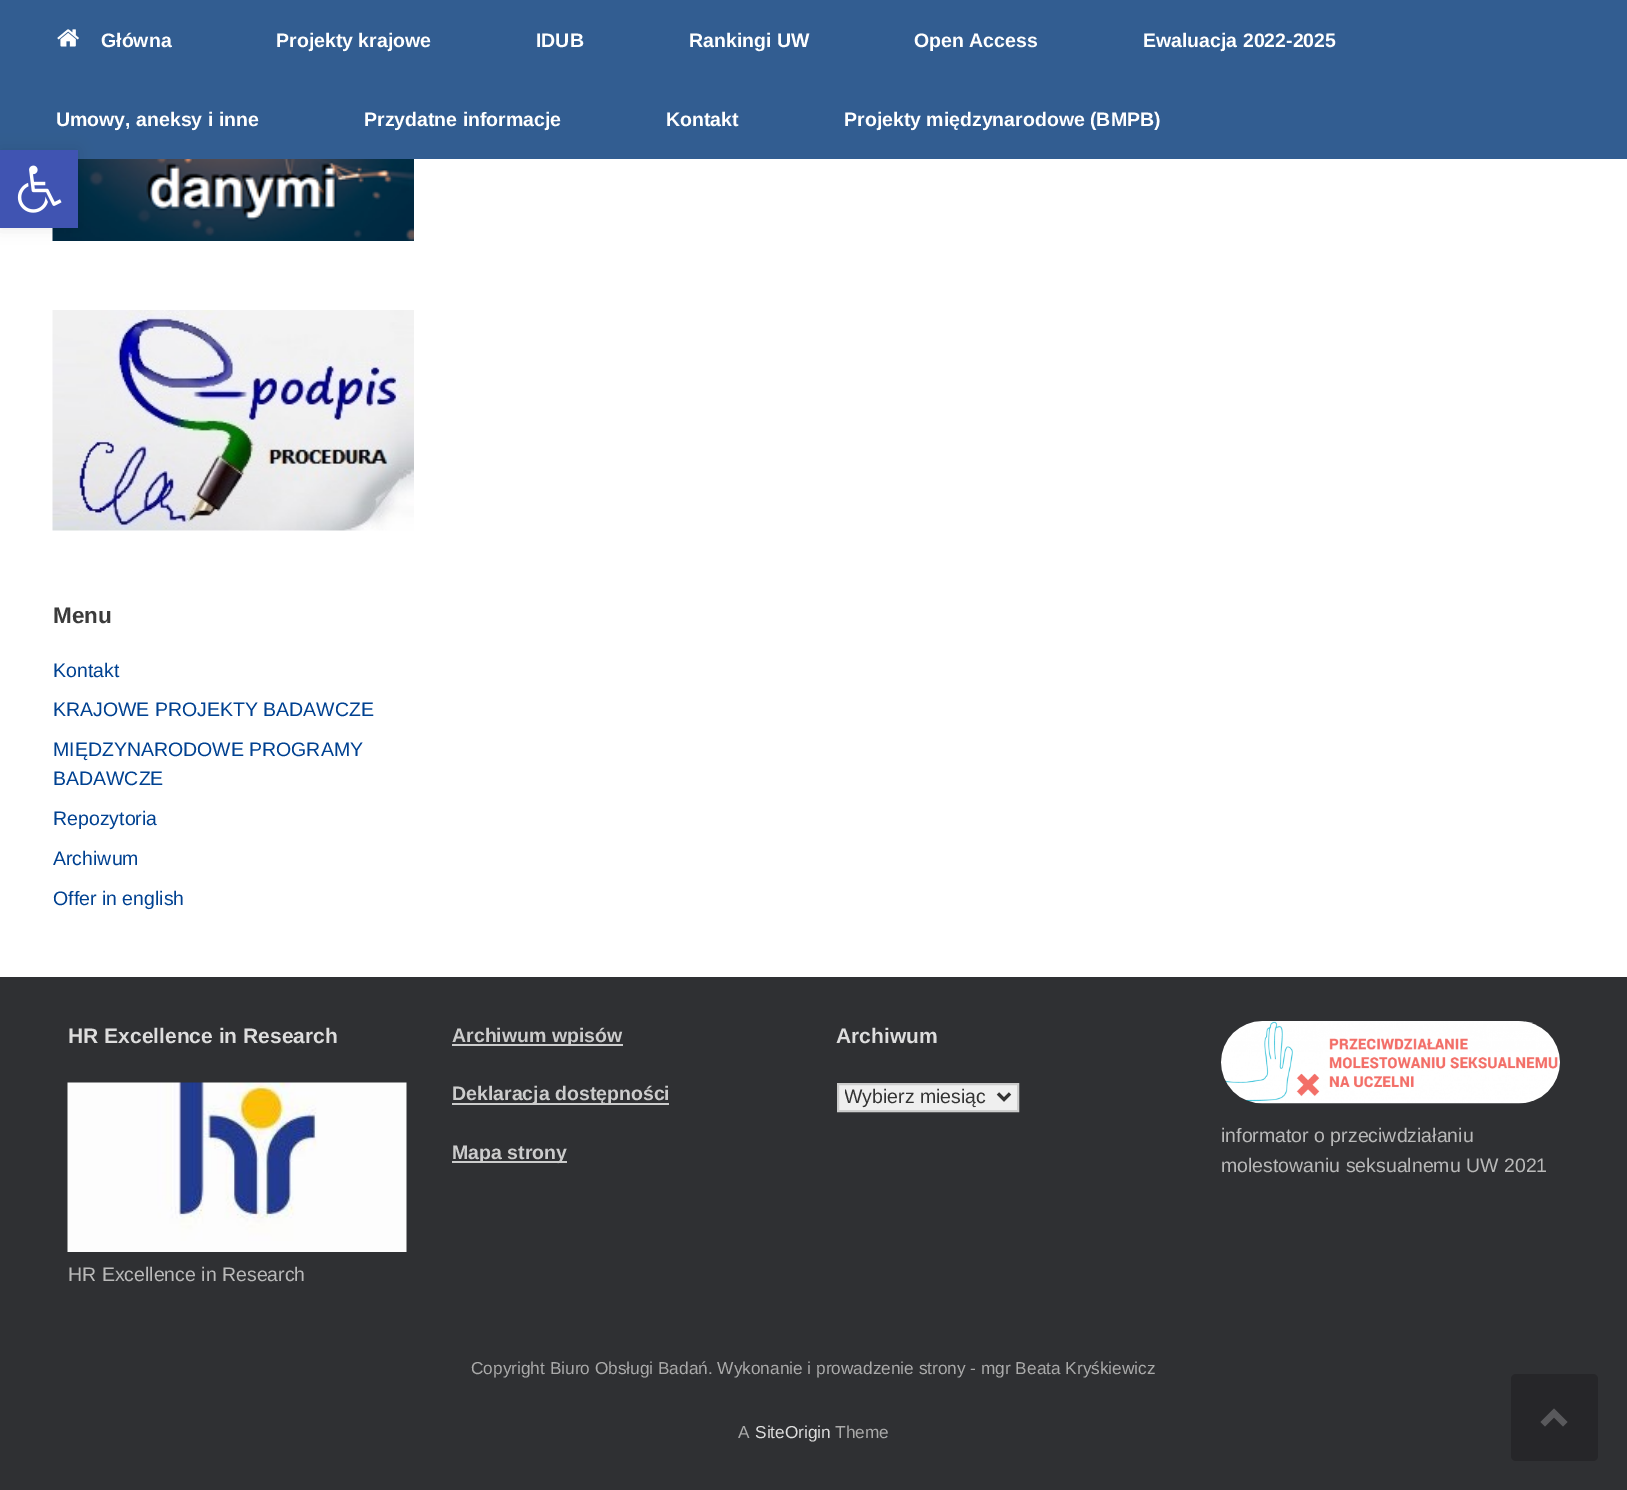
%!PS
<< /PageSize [1627 1490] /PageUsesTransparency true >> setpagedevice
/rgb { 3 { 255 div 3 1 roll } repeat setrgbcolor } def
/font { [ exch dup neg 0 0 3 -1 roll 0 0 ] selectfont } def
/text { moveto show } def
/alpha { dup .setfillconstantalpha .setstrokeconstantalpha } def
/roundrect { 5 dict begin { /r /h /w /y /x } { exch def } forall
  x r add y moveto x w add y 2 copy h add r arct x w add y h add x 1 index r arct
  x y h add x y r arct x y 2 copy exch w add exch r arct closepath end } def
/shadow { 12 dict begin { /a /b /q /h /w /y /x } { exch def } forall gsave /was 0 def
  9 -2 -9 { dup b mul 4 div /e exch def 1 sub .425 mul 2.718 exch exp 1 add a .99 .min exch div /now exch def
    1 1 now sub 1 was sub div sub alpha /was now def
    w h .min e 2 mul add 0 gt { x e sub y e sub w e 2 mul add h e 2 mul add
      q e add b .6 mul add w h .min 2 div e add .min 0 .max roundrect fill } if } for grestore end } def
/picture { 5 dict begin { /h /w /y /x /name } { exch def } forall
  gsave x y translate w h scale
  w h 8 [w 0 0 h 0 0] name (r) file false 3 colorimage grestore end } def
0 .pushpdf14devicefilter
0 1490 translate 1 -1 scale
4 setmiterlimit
47 48 51 rgb
0 0 1627 1490 rectfill
50 93 145 rgb
0 0 1627 159 rectfill
255 255 255 rgb
0 159 1627 818 rectfill
(img_03.rgb) 52 159 362 82 picture
0 0 0 rgb
0 150 78 78 0 7.5 0.1 shadow
64 84 178 rgb
0 150 78 78 rectfill
(img_01.rgb) 17 165 45 48 picture
(img_02.rgb) 57 29 22 18 picture
(img_04.rgb) 52 310 362 221 picture
(img_05.rgb) 67 1082 340 170 picture
204 204 204 rgb
452 1044 171 2 rectfill
452 1103 217 2 rectfill
452 1161 115 2 rectfill
239 239 239 rgb
838 1084 moveto 180 0 rlineto 0 27 rlineto -180 0 rlineto closepath gsave fill grestore
204 204 204 rgb
2 setlinewidth
stroke
51 51 51 rgb
3 setlinewidth
998 1093.5 moveto 6 6 rlineto 6 -6 rlineto stroke
(img_06.rgb) 1221 1021 339 83 picture
38 38 41 rgb
1511 1374 87 87 5 roundrect fill
89 89 92 rgb
1567.5 1422 moveto -13.5 -13.5 rlineto -13.5 13.5 rlineto 4.5 4.5 rlineto 9 -9 rlineto 9 9 rlineto closepath fill
/LiberationSans-Bold 19.5 font
255 255 255 rgb
(Główna) 101 47 text
(Projekty krajowe) 276 47 text
(IDUB) 536 47 text
(Rankingi UW) 689 47 text
(Open Access) 914 47 text
(Ewaluacja 2022-2025) 1143 47 text
(Umowy, aneksy i inne) 56 126 text
(Przydatne informacje) 364 126 text
(Kontakt) 666 126 text
(Projekty międzynarodowe \(BMPB\)) 844 126 text
/LiberationSans-Bold 22.5 font
59 59 59 rgb
(Menu) 53 623 text
/LiberationSans-Regular 19.5 font
0 65 145 rgb
(Kontakt) 53 677 text
(KRAJOWE PROJEKTY BADAWCZE) 53 716 text
(MIĘDZYNARODOWE PROGRAMY) 53 756 text
(BADAWCZE) 53 785 text
(Repozytoria) 53 825 text
(Archiwum) 53 865 text
(Offer in english) 53 905 text
/LiberationSans-Bold 21 font
221 221 221 rgb
(HR Excellence in Research) 68 1043 text
/LiberationSans-Regular 19.5 font
185 185 185 rgb
(HR Excellence in Research) 68 1281 text
/LiberationSans-Bold 19.5 font
204 204 204 rgb
(Archiwum wpisów) 452 1042 text
(Deklaracja dostępności) 452 1100 text
(Mapa strony) 452 1159 text
/LiberationSans-Bold 21 font
221 221 221 rgb
(Archiwum) 836 1043 text
gsave
845 1085 148 25 rectclip
/LiberationSans-Regular 19.5 font
51 51 51 rgb
(Wybierz miesiąc) 844 1103 text
grestore
/LiberationSans-Regular 19.5 font
185 185 185 rgb
(informator o przeciwdziałaniu) 1221 1142 text
(molestowaniu seksualnemu UW 2021) 1221 1172 text
/LiberationSans-Regular 17.25 font
170 170 170 rgb
(Copyright Biuro Obsługi Badań. Wykonanie i prowadzenie strony - mgr Beata Kryśkiewicz) 471 1374 text
(A) 738 1438 text
221 221 221 rgb
(SiteOrigin) 755 1438 text
170 170 170 rgb
(Theme) 835 1438 text
.poppdf14devicefilter showpage
